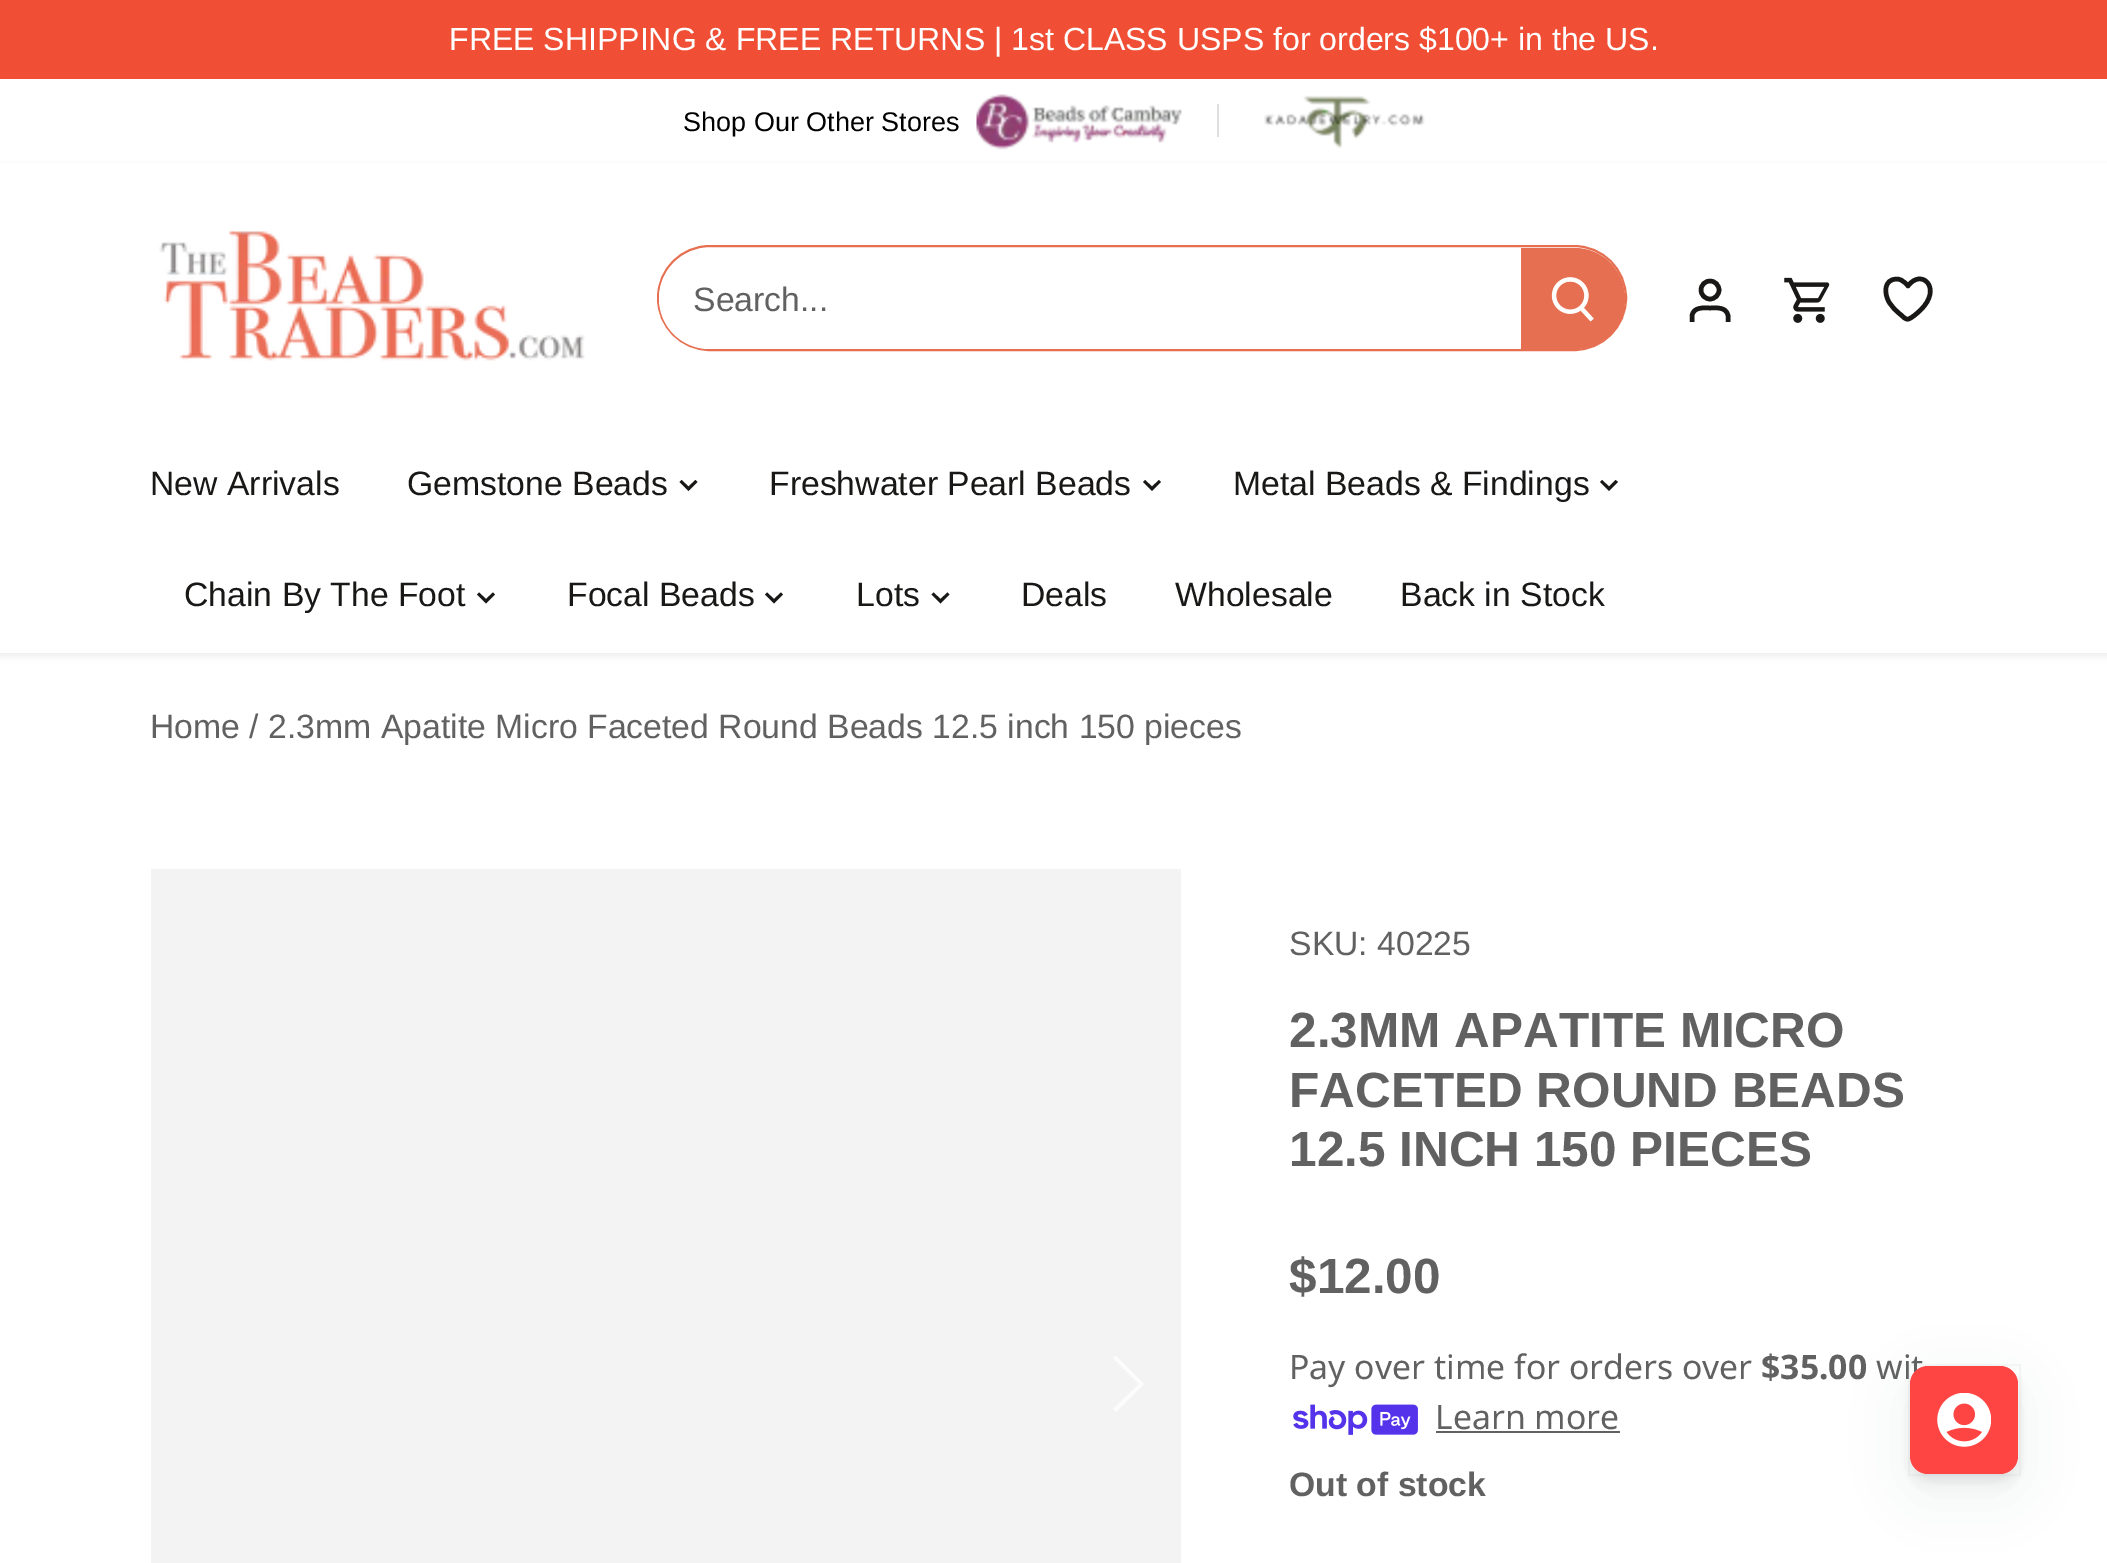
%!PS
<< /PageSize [2107 1563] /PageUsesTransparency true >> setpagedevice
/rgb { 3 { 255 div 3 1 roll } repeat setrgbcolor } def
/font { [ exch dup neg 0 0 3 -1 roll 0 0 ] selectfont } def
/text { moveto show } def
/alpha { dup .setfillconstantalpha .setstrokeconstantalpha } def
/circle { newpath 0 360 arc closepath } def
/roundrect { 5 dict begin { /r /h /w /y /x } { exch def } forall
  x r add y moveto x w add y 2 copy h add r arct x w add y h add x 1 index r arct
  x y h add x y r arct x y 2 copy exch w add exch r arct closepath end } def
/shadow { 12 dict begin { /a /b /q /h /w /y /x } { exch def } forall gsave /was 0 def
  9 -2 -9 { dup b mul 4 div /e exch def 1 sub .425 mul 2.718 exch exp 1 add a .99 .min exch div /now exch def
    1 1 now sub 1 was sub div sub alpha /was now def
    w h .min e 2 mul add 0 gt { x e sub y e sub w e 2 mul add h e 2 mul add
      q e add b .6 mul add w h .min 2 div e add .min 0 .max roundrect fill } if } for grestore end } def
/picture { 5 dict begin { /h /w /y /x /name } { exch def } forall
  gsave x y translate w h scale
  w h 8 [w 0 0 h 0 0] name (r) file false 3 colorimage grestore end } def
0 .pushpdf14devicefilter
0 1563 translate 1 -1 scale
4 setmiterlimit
255 255 255 rgb
0 0 2107 1563 rectfill
240 79 54 rgb
0 0 2107 79 rectfill
(img_01.rgb) 976 94 206 56 picture
223 223 223 rgb
1217 104 2 33 rectfill
(img_02.rgb) 1264 95 161 54 picture
0 0 0 rgb
-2 167 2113 488 0 3.5 0.08 shadow
255 255 255 rgb
0 163 2107 490 rectfill
(img_03.rgb) 159 229 426 132 picture
231 111 81 rgb
2 setlinewidth
658 246 968 104 52 roundrect stroke
255 255 255 rgb
709.5 248 moveto 813.5 0 rlineto 0 101 rlineto -813.5 0 rlineto -28 0 -50.5 -22.5 -50.5 -50.5 rcurveto 0 -28 22.5 -50.5 50.5 -50.5 rcurveto closepath fill
231 111 81 rgb
1521 248 moveto 53.5 0 rlineto 28 0 50.5 22.5 50.5 50.5 rcurveto 0 28 -22.5 50.5 -50.5 50.5 rcurveto -53.5 0 rlineto closepath fill
(img_04.rgb) 1551 277 43 45 picture
25 24 23 rgb
4.5 setlinewidth
1710 290 9 circle stroke
1728 322 moveto 0 -6.5 rlineto -2 -9 -11.5 -7.5 -18 -7.5 rcurveto -6.5 0 -16 -1.5 -18 7.5 rcurveto 0 6.5 rlineto stroke
(img_05.rgb) 1784 277 46 46 picture
1 setlinecap
1 setlinejoin
1897 279 moveto -13.5 0 -13 14.5 -8 23 rcurveto 3 5 7 9 11.5 12.5 rcurveto 2.5 2 5 5.5 8 4.5 rcurveto 3.5 -1 9.5 -6.5 12 -9 rcurveto 22.5 -21.5 1 -42.5 -12.5 -24 rcurveto 0 0 -5 -7 -11 -7 rcurveto closepath stroke
681.5 480 moveto 7 6.5 rlineto 7 -6.5 rlineto 2 2 rlineto -9 9 rlineto -9 -9 rlineto closepath fill
1145 480 moveto 7 6.5 rlineto 7 -6.5 rlineto 2 2 rlineto -9 9 rlineto -9 -9 rlineto closepath fill
1602 480 moveto 7 6.5 rlineto 6.5 -6.5 rlineto 2.5 2 rlineto -9 9 rlineto -9 -9 rlineto closepath fill
479 592.5 moveto 7 6.5 rlineto 7 -6.5 rlineto 2 2 rlineto -9 9 rlineto -9 -9 rlineto closepath fill
767 592.5 moveto 7 6.5 rlineto 7 -6.5 rlineto 2 2 rlineto -9 9 rlineto -9 -9 rlineto closepath fill
933.5 592.5 moveto 7 6.5 rlineto 7 -6.5 rlineto 2 2 rlineto -9 9 rlineto -9 -9 rlineto closepath fill
243 243 243 rgb
151 869 1030 694 rectfill
252 252 252 rgb
1116 1356 moveto -3 2 rlineto 26 26 rlineto -26 25 rlineto 3 3 rlineto 28 -28 rlineto closepath fill
(img_06.rgb) 1293 1404 125 31 picture
97 97 97 rgb
1436 1431 184 2 rectfill
55 63 71 rgb
1910 1384 108 108 18 27 0.08 shadow
1910 1375 108 108 18 4.5 0.08 shadow
/LiberationSans-Regular 32.05 font
255 255 255 rgb
(FREE SHIPPING & FREE RETURNS | 1st CLASS USPS for orders $100+ in the US.) 449 50 text
/LiberationSans-Regular 27 font
0 0 0 rgb
(Shop Our Other Stores) 683 131 text
/LiberationSans-Regular 33.75 font
97 97 97 rgb
(Search...) 693 311 text
25 24 23 rgb
(New Arrivals) 150 495 text
(Gemstone Beads) 407 495 text
(Freshwater Pearl Beads) 769 495 text
(Metal Beads & Findings) 1233 495 text
(Chain By The Foot) 184 606 text
(Focal Beads) 567 606 text
(Lots) 856 606 text
(Deals) 1021 606 text
(Wholesale) 1175 606 text
(Back in Stock) 1400 606 text
97 97 97 rgb
(Home / 2.3mm Apatite Micro Faceted Round Beads 12.5 inch 150 pieces) 150 738 text
(SKU: 40225) 1289 955 text
/LiberationSans-Bold 49.5 font
(2.3MM APATITE MICRO) 1289 1047 text
(FACETED ROUND BEADS) 1289 1107 text
(12.5 INCH 150 PIECES) 1289 1166 text
($12.00) 1289 1293 text
/NotoSans-Regular 33.75 font
(Pay over time for orders over) 1289 1379 text
/NotoSans-Bold 33.75 font
($35.00) 1761 1379 text
/NotoSans-Regular 33.75 font
(wit) 1876 1379 text
(Learn more) 1435 1429 text
/LiberationSans-Bold 33.75 font
(Out of stock) 1289 1496 text
0.04 alpha
55 63 71 rgb
2 setlinewidth
0 setlinecap
0 setlinejoin
1909 1365 111 110 rectstroke
1 alpha
255 68 68 rgb
1910 1366 108 108 18 roundrect fill
(img_07.rgb) 1937 1393 54 54 picture
.poppdf14devicefilter showpage
